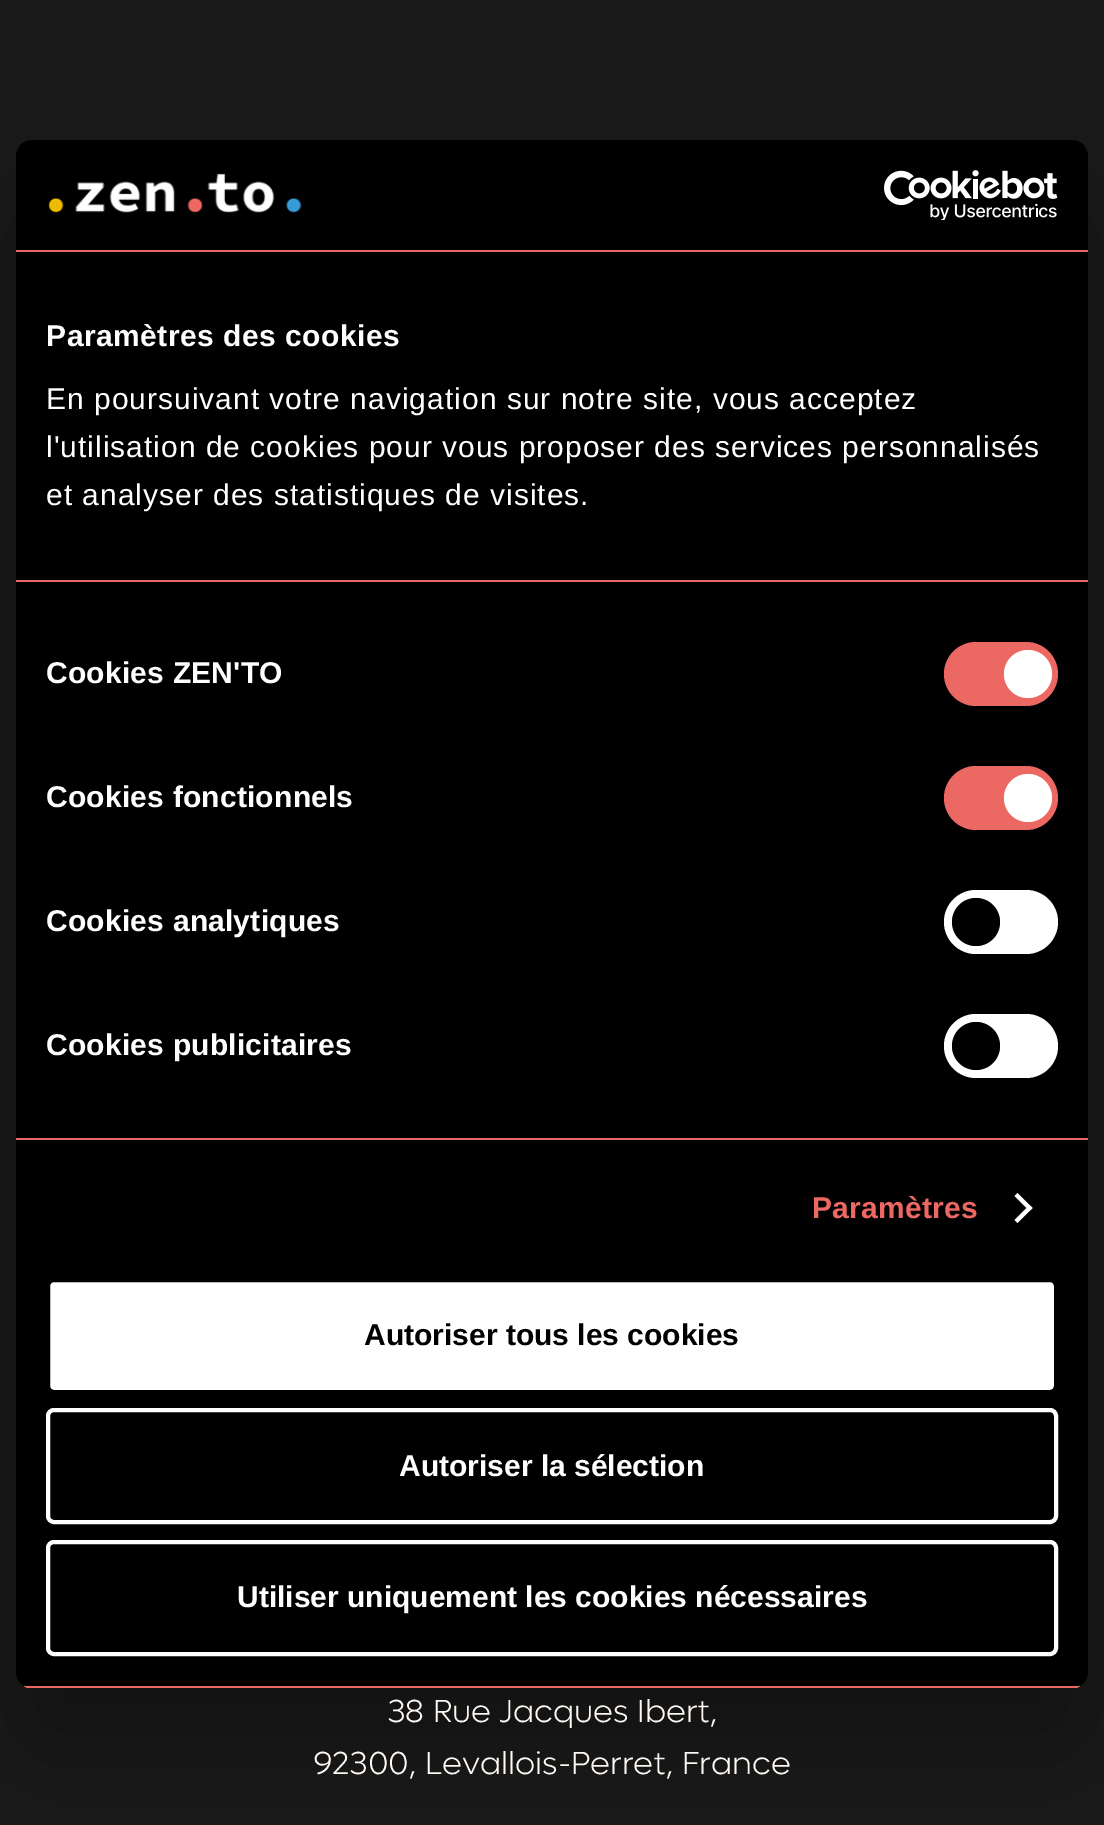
%!PS
<< /PageSize [1104 1825] /PageUsesTransparency true >> setpagedevice
/rgb { 3 { 255 div 3 1 roll } repeat setrgbcolor } def
/font { [ exch dup neg 0 0 3 -1 roll 0 0 ] selectfont } def
/text { moveto show } def
/alpha { dup .setfillconstantalpha .setstrokeconstantalpha } def
/circle { newpath 0 360 arc closepath } def
/roundrect { 5 dict begin { /r /h /w /y /x } { exch def } forall
  x r add y moveto x w add y 2 copy h add r arct x w add y h add x 1 index r arct
  x y h add x y r arct x y 2 copy exch w add exch r arct closepath end } def
/shadow { 12 dict begin { /a /b /q /h /w /y /x } { exch def } forall gsave /was 0 def
  9 -2 -9 { dup b mul 4 div /e exch def 1 sub .425 mul 2.718 exch exp 1 add a .99 .min exch div /now exch def
    1 1 now sub 1 was sub div sub alpha /was now def
    w h .min e 2 mul add 0 gt { x e sub y e sub w e 2 mul add h e 2 mul add
      q e add b .6 mul add w h .min 2 div e add .min 0 .max roundrect fill } if } for grestore end } def
/picture { 5 dict begin { /h /w /y /x /name } { exch def } forall
  gsave x y translate w h scale
  w h 8 [w 0 0 h 0 0] name (r) file false 3 colorimage grestore end } def
0 .pushpdf14devicefilter
0 1825 translate 1 -1 scale
4 setmiterlimit
27 26 26 rgb
0 0 1104 1825 rectfill
0 0 0 rgb
16 204 1072 1548 16 68 0.3 shadow
16 140 1072 1548 16 roundrect fill
236 104 99 rgb
16 250 1072 2 rectfill
(img_01.rgb) 48 173 254 40 picture
(img_02.rgb) 884 170 174 50 picture
16 580 1072 2 rectfill
16 1138 1072 2 rectfill
944 642 114 64 32 roundrect fill
255 255 255 rgb
1028 674 24 circle fill
236 104 99 rgb
944 766 114 64 32 roundrect fill
255 255 255 rgb
1028 798 24 circle fill
944 890 114 64 32 roundrect fill
0 0 0 rgb
976 922 24 circle fill
255 255 255 rgb
944 1014 114 64 32 roundrect fill
0 0 0 rgb
976 1046 24 circle fill
255 255 255 rgb
1017.5 1193 moveto 15 15 rlineto -3 3 rlineto -15 -15 rlineto closepath fill
1029.5 1205 moveto 3 3 rlineto -15 15 rlineto -3 -3 rlineto closepath fill
gsave
16 140 1072 1548 16 roundrect clip newpath
236 104 99 rgb
16 1686 1072 2 rectfill
grestore
48 1280 1008 112 6 roundrect gsave fill grestore
0 0 0 rgb
4 setlinewidth
stroke
255 255 255 rgb
48 1410 1008 112 6 roundrect stroke
48 1542 1008 112 6 roundrect stroke
/LiberationSans-Bold 30 font
46 346 moveto 0.5 0 (Paramètres des cookies) ashow
/LiberationSans-Regular 30 font
46 409 moveto 1 0 (En poursuivant votre navigation sur notre site, vous acceptez) ashow
46 457 moveto 1 0 (l'utilisation de cookies pour vous proposer des services personnalisés) ashow
46 505 moveto 1 0 (et analyser des statistiques de visites.) ashow
/LiberationSans-Bold 30 font
46 683 moveto 0.2 0 (Cookies ZEN'TO) ashow
46 807 moveto 0.2 0 (Cookies fonctionnels) ashow
46 931 moveto 0.2 0 (Cookies analytiques) ashow
46 1055 moveto 0.2 0 (Cookies publicitaires) ashow
236 104 99 rgb
812 1218 moveto 0.2 0 (Paramètres) ashow
0 0 0 rgb
(Autoriser tous les cookies) 364 1345 text
255 255 255 rgb
(Autoriser la sélection) 399 1476 text
(Utiliser uniquement les cookies nécessaires) 237 1607 text
/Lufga-Light 32 font
255 249 243 rgb
(38 Rue Jacques Ibert,) 387 1722 text
(92300, Levallois-Perret, France) 314 1774 text
.poppdf14devicefilter showpage
